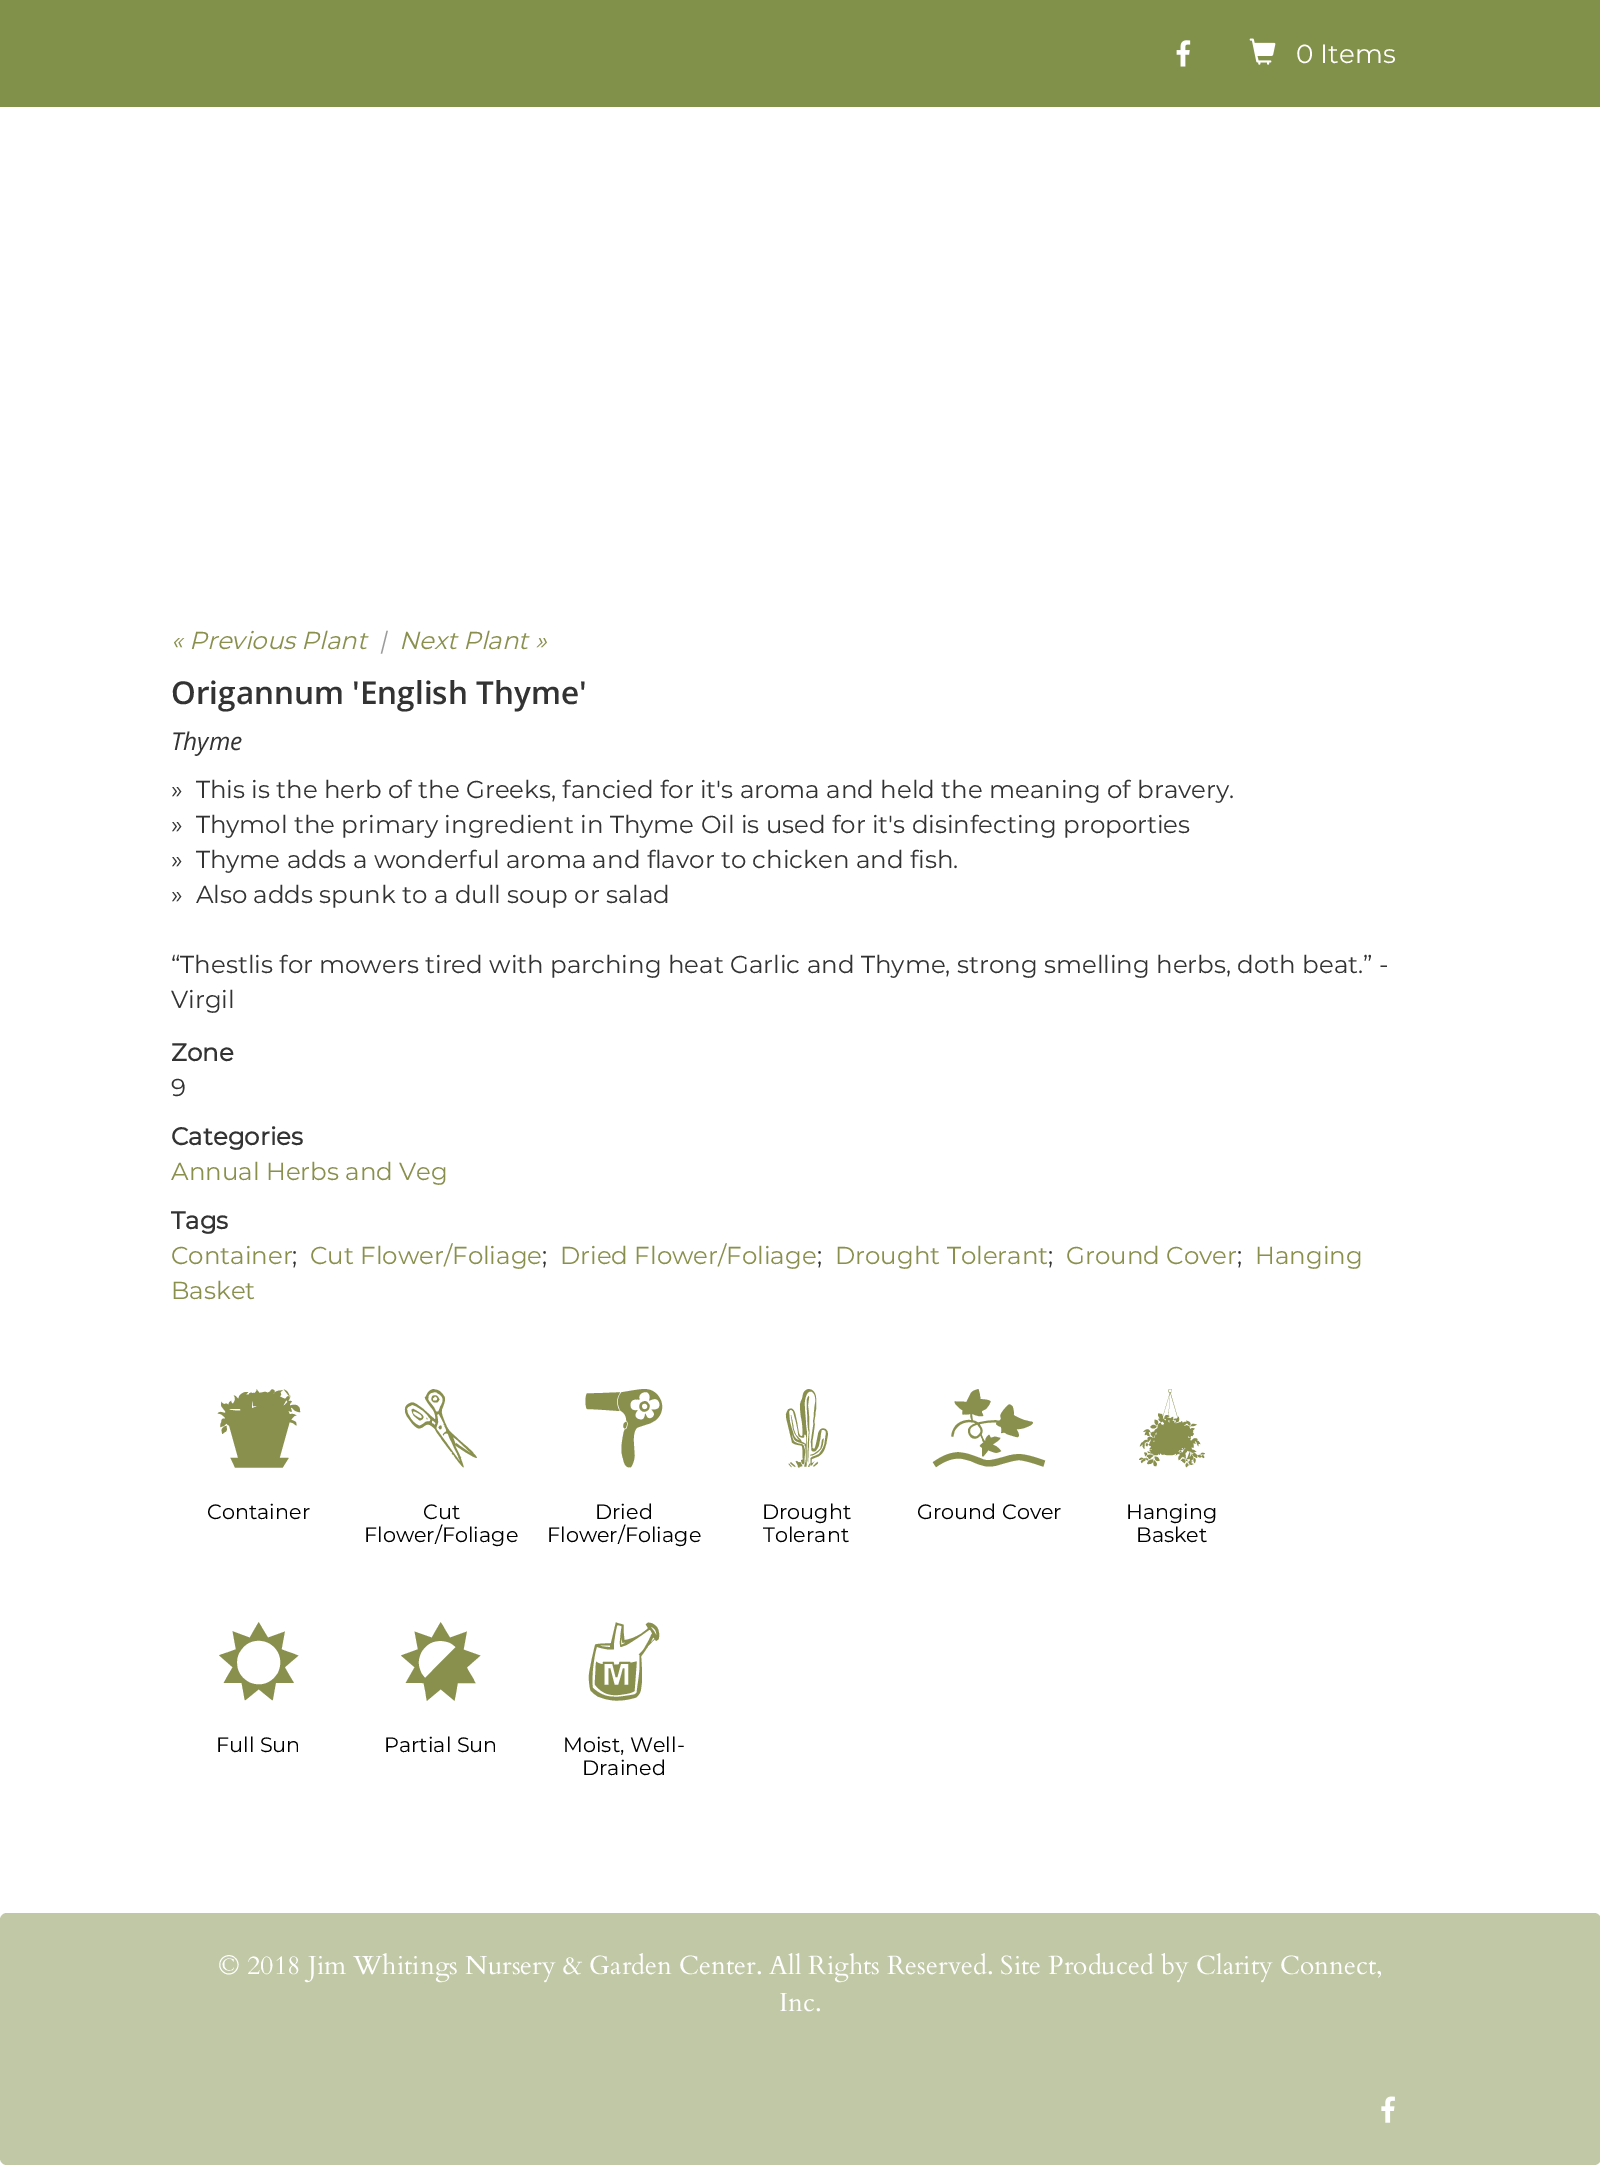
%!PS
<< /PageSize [1600 2180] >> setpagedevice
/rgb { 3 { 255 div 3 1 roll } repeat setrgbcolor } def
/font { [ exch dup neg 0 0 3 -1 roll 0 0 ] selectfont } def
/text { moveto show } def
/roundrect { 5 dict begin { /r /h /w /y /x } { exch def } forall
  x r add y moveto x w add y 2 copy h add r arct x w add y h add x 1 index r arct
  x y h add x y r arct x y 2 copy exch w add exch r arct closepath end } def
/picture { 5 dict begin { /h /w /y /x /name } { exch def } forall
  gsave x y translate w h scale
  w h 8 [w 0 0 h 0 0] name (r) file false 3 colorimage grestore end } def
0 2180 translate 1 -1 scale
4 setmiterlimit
255 255 255 rgb
0 0 1600 2180 rectfill
130 145 74 rgb
0 0 1600 107 rectfill
(img_01.rgb) 1176 40 15 27 picture
(img_02.rgb) 1249 38 27 27 picture
192 200 165 rgb
0 1913 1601 252 7 roundrect fill
(img_03.rgb) 1381 2096 14 27 picture
/Montserrat-Thin 26.25 font
255 255 255 rgb
(0 Items) 1296 63 text
/Montserrat-ThinItalic 24.5 font
137 144 77 rgb
(« Previous Plant) 171 649 text
155 155 155 rgb
(|) 379 649 text
137 144 77 rgb
(Next Plant ») 399 649 text
/OpenSans-SemiBold 31.5 font
51 51 51 rgb
(Origannum 'English Thyme') 171 704 text
/OpenSans-Italic 24.5 font
(Thyme) 171 750 text
/Montserrat-Thin 24.5 font
(»  This is the herb of the Greeks, fancied for it's aroma and held the meaning of bravery.) 171 798 text
(»  Thymol the primary ingredient in Thyme Oil is used for it's disinfecting proporties) 171 833 text
(»  Thyme adds a wonderful aroma and flavor to chicken and fish.) 171 868 text
(»  Also adds spunk to a dull soup or salad) 171 903 text
(“Thestlis for mowers tired with parching heat Garlic and Thyme, strong smelling herbs, doth beat.” -) 171 973 text
(Virgil) 171 1008 text
/Montserrat-Bold 24.5 font
(Zone) 171 1061 text
/Montserrat-Thin 24.5 font
(9) 171 1096 text
/Montserrat-Bold 24.5 font
(Categories) 171 1145 text
/Montserrat-Thin 24.5 font
137 144 77 rgb
(Annual Herbs and Veg) 171 1180 text
/Montserrat-Bold 24.5 font
51 51 51 rgb
(Tags) 171 1229 text
/Montserrat-Thin 24.5 font
137 144 77 rgb
(Container) 171 1264 text
51 51 51 rgb
(;) 292 1264 text
137 144 77 rgb
(Cut Flower/Foliage) 310 1264 text
51 51 51 rgb
(;) 542 1264 text
137 144 77 rgb
(Dried Flower/Foliage) 560 1264 text
51 51 51 rgb
(;) 817 1264 text
137 144 77 rgb
(Drought Tolerant) 835 1264 text
51 51 51 rgb
(;) 1048 1264 text
137 144 77 rgb
(Ground Cover) 1066 1264 text
51 51 51 rgb
(;) 1237 1264 text
137 144 77 rgb
(Hanging) 1255 1264 text
(Basket) 171 1299 text
/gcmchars-Regular 140 font
(t) 189 1498 text
/Montserrat-Thin 20.75 font
0 0 0 rgb
(Container) 207 1519 text
/gcmchars-Regular 140 font
137 144 77 rgb
(d) 371 1498 text
/Montserrat-Thin 20.75 font
0 0 0 rgb
(Cut) 423 1519 text
(Flower/Foliage) 364 1542 text
/gcmchars-Regular 140 font
137 144 77 rgb
(f) 554 1498 text
/Montserrat-Thin 20.75 font
0 0 0 rgb
(Dried) 595 1519 text
(Flower/Foliage) 547 1542 text
/gcmchars-Regular 140 font
137 144 77 rgb
(2) 737 1498 text
/Montserrat-Thin 20.75 font
0 0 0 rgb
(Drought) 762 1519 text
(Tolerant) 763 1542 text
/gcmchars-Regular 140 font
137 144 77 rgb
(k) 919 1498 text
/Montserrat-Thin 20.75 font
0 0 0 rgb
(Ground Cover) 917 1519 text
/gcmchars-Regular 140 font
137 144 77 rgb
(o) 1102 1498 text
/Montserrat-Thin 20.75 font
0 0 0 rgb
(Hanging) 1126 1519 text
(Basket) 1136 1542 text
/gcmchars-Regular 140 font
137 144 77 rgb
(j) 189 1731 text
/Montserrat-Thin 20.75 font
0 0 0 rgb
(Full Sun) 216 1752 text
/gcmchars-Regular 140 font
137 144 77 rgb
(p) 371 1731 text
/Montserrat-Thin 20.75 font
0 0 0 rgb
(Partial Sun) 384 1752 text
/gcmchars-Regular 140 font
137 144 77 rgb
(y) 554 1731 text
/Montserrat-Thin 20.75 font
0 0 0 rgb
(Moist, Well-) 563 1752 text
(Drained) 582 1775 text
/Cardo-Regular 26.25 font
255 255 255 rgb
(© 2018 Jim Whitings Nursery & Garden Center. All Rights Reserved. Site Produced by Clarity Connect,) 218 1974 text
(Inc.) 779 2011 text
showpage
